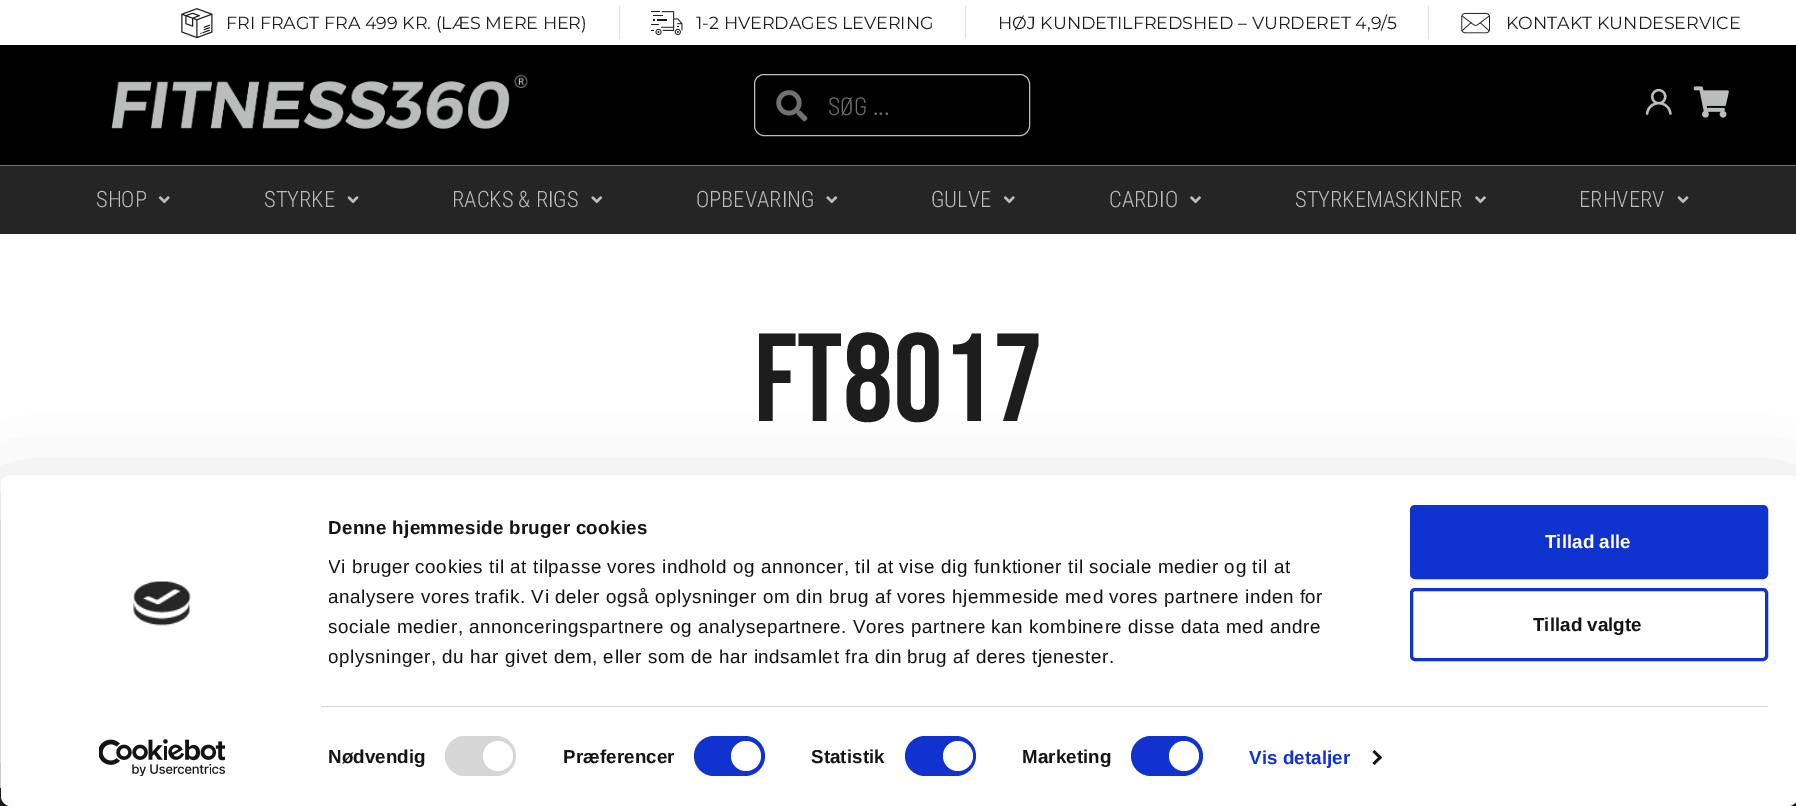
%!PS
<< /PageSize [1796 806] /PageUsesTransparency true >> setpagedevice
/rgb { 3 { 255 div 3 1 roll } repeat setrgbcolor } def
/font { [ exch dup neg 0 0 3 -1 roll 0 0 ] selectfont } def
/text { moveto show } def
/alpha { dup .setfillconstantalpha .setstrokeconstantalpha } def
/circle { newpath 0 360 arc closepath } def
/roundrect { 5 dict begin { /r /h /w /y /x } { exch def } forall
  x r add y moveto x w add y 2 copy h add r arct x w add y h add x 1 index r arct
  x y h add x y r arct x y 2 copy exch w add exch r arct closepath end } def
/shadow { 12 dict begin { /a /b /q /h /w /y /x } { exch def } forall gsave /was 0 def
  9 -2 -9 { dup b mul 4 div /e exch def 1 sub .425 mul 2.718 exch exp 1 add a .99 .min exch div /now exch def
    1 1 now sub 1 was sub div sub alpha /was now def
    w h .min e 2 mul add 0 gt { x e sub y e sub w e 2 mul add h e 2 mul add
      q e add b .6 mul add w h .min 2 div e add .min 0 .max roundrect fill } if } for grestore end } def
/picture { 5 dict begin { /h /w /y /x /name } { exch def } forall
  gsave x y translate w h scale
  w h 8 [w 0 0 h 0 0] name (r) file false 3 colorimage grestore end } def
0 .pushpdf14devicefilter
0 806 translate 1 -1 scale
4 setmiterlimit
255 255 255 rgb
0 0 1796 806 rectfill
(img_01.rgb) 181 8 32 31 picture
221 221 221 rgb
619 6 1 33 rectfill
(img_02.rgb) 651 11 32 25 picture
965 6 1 33 rectfill
1428 6 1 33 rectfill
(img_03.rgb) 1461 12 29 22 picture
0 0 0 rgb
0 45 1796 120 rectfill
(img_04.rgb) 111 74 417 55 picture
187 188 188 rgb
754.5 74.5 275 61 9.5 roundrect stroke
(img_05.rgb) 776 90 32 32 picture
(img_06.rgb) 1645 88 27 27 picture
(img_07.rgb) 1693 86 36 32 picture
37 37 37 rgb
0 166 1796 68 rectfill
112 112 112 rgb
0 165 1796 1 rectfill
(img_08.rgb) 158 196 12 8 picture
(img_09.rgb) 347 196 12 8 picture
(img_10.rgb) 591 196 12 8 picture
(img_10.rgb) 826 196 12 8 picture
(img_08.rgb) 1003 196 12 8 picture
(img_11.rgb) 1190 196 11 8 picture
(img_11.rgb) 1475 196 11 8 picture
(img_09.rgb) 1677 196 12 8 picture
233 233 233 rgb
0 763 1 25 rectfill
29 29 29 rgb
0 788 1796 18 rectfill
gsave
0 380 moveto 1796 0 rlineto 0 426 rlineto -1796 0 rlineto closepath 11 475 moveto 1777 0 rlineto 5.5 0 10 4.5 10 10 rcurveto 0 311 rlineto 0 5.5 -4.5 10 -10 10 rcurveto -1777 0 rlineto -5.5 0 -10 -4.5 -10 -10 rcurveto 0 -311 rlineto 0 -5.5 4.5 -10 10 -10 rcurveto closepath eoclip newpath
0 0 0 rgb
1 513 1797 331 10 44 0.3 shadow
grestore
255 255 255 rgb
1 475 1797 331 10 roundrect fill
(img_12.rgb) 133 581 58 45 picture
(img_13.rgb) 99 739 126 37 picture
214 214 214 rgb
321 706 1447 1 rectfill
445 736 71 40 20 roundrect fill
255 255 255 rgb
498 756 15 circle fill
16 50 207 rgb
694 736 71 40 20 roundrect fill
255 255 255 rgb
746 756 15 circle fill
16 50 207 rgb
905 736 71 40 20 roundrect fill
255 255 255 rgb
958 756 15 circle fill
16 50 207 rgb
1131 736 72 40 20 roundrect fill
255 255 255 rgb
1184 756 15 circle fill
20 20 20 rgb
1374.5 750 moveto 7.5 7.5 rlineto -2 2 rlineto -7.5 -7.5 rlineto closepath fill
1380 755.5 moveto 2 2 rlineto -7.5 7.5 rlineto -2 -2 rlineto closepath fill
16 50 207 rgb
1411.5 506.5 355 71 3.5 roundrect gsave fill grestore
3 setlinewidth
stroke
1411.5 589.5 355 70 3.5 roundrect stroke
/Montserrat-Regular 17.5 font
29 29 29 rgb
(FRI FRAGT FRA 499 KR. \(LÆS MERE HER\)) 226 29 text
(1-2 HVERDAGES LEVERING) 696 29 text
(HØJ KUNDETILFREDSHED – VURDERET 4,9/5) 998 29 text
(KONTAKT KUNDESERVICE) 1506 29 text
/BarlowSemiCondensed-Light 25 font
112 113 113 rgb
(SØG ...) 828 115 text
/RobotoCondensed-Light 22.5 font
187 188 188 rgb
(SHOP) 96 207 text
(STYRKE) 264 207 text
(RACKS & RIGS) 452 207 text
(OPBEVARING) 696 207 text
(GULVE) 931 207 text
(CARDIO) 1109 207 text
(STYRKEMASKINER) 1295 207 text
(ERHVERV) 1579 207 text
/BebasNeue-Regular 125 font
29 29 29 rgb
(FT8017) 754 421 text
gsave
329 513 1045 158 rectclip
/LiberationSans-Bold 18.75 font
20 20 20 rgb
328 534 moveto 0.3 0 (Denne hjemmeside bruger cookies) ashow
/LiberationSans-Regular 18.75 font
328 573 moveto 0.62 0 (Vi bruger cookies til at tilpasse vores indhold og annoncer, til at vise dig funktioner til sociale medier og til at) ashow
328 603 moveto 0.62 0 (analysere vores trafik. Vi deler også oplysninger om din brug af vores hjemmeside med vores partnere inden for) ashow
328 633 moveto 0.62 0 (sociale medier, annonceringspartnere og analysepartnere. Vores partnere kan kombinere disse data med andre) ashow
328 663 moveto 0.62 0 (oplysninger, du har givet dem, eller som de har indsamlet fra din brug af deres tjenester.) ashow
grestore
/LiberationSans-Bold 18.75 font
20 20 20 rgb
328 763 moveto 0.1 0 (Nødvendig) ashow
563 763 moveto 0.1 0 (Præferencer) ashow
811 763 moveto 0.1 0 (Statistik) ashow
1022 763 moveto 0.1 0 (Marketing) ashow
16 50 207 rgb
1249 764 moveto 0.1 0 (Vis detaljer) ashow
255 255 255 rgb
(Tillad alle) 1545 548 text
20 20 20 rgb
(Tillad valgte) 1533 631 text
.poppdf14devicefilter showpage
